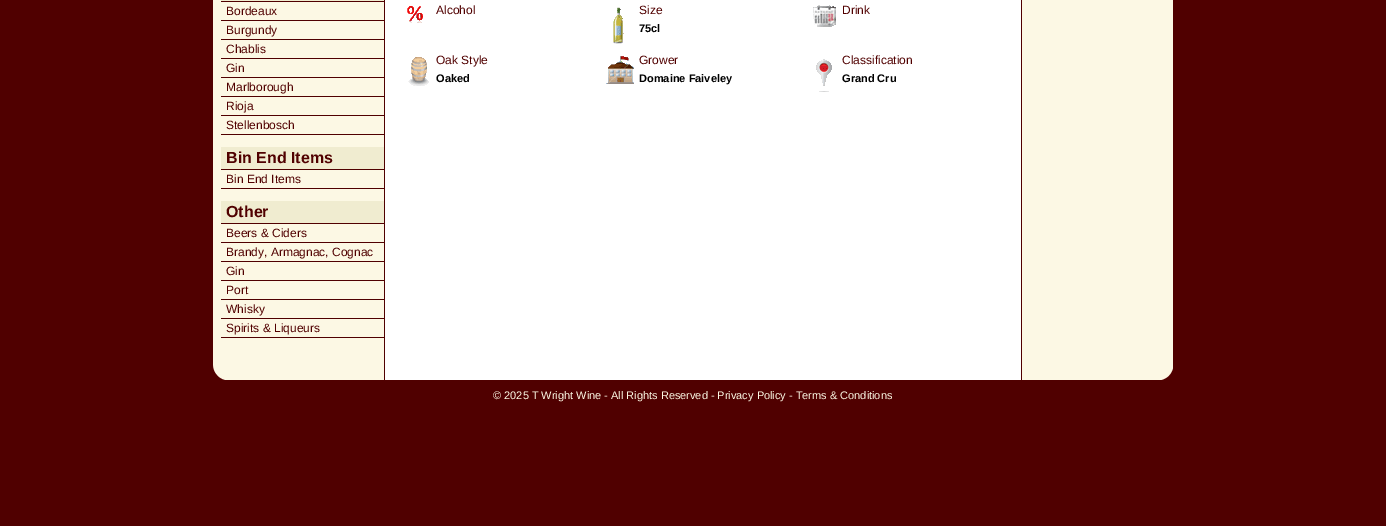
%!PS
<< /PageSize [1386 526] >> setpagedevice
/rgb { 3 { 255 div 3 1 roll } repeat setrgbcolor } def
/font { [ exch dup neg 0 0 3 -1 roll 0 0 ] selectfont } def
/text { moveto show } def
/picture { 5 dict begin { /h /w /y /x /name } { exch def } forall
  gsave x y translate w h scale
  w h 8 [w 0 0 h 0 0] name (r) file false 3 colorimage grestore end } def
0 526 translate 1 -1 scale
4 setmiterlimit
80 0 0 rgb
0 0 1386 526 rectfill
255 255 255 rgb
385 0 636 350 rectfill
252 248 228 rgb
213 0 8 350 rectfill
221 2 163 348 rectfill
240 236 208 rgb
221 0 163 1 rectfill
80 0 0 rgb
221 20 163 1 rectfill
221 39 163 1 rectfill
221 58 163 1 rectfill
221 77 163 1 rectfill
221 96 163 1 rectfill
221 115 163 1 rectfill
221 134 163 1 rectfill
240 236 208 rgb
221 147 163 22 rectfill
80 0 0 rgb
221 169 163 1 rectfill
221 188 163 1 rectfill
240 236 208 rgb
221 201 163 22 rectfill
80 0 0 rgb
221 223 163 1 rectfill
221 242 163 1 rectfill
221 261 163 1 rectfill
221 280 163 1 rectfill
221 299 163 1 rectfill
221 318 163 1 rectfill
221 337 163 1 rectfill
(img_01.rgb) 407 6 16 17 picture
(img_02.rgb) 613 7 11 37 picture
(img_03.rgb) 813 5 23 22 picture
(img_04.rgb) 408 57 21 29 picture
(img_05.rgb) 606 56 28 28 picture
(img_06.rgb) 816 59 16 33 picture
252 248 228 rgb
1022 0 151 350 rectfill
(img_07.rgb) 213 350 960 30 picture
/LiberationSans-Regular 12 font
80 0 0 rgb
(Bordeaux) 226 15 text
(Burgundy) 226 34 text
(Chablis) 226 53 text
(Gin) 226 72 text
(Marlborough) 226 91 text
(Rioja) 226 110 text
(Stellenbosch) 226 129 text
/LiberationSans-Bold 16 font
(Bin End Items) 226 163 text
/LiberationSans-Regular 12 font
(Bin End Items) 226 183 text
/LiberationSans-Bold 16 font
(Other) 226 217 text
/LiberationSans-Regular 12 font
(Beers & Ciders) 226 237 text
(Brandy, Armagnac, Cognac) 226 256 text
(Gin) 226 275 text
(Port) 226 294 text
(Whisky) 226 313 text
(Spirits & Liqueurs) 226 332 text
(Alcohol) 436 14 text
(Size) 639 14 text
/LiberationSans-Bold 11 font
0 0 0 rgb
(75cl) 639 32 text
/LiberationSans-Regular 12 font
80 0 0 rgb
(Drink) 842 14 text
(Oak Style) 436 64 text
/LiberationSans-Bold 11 font
0 0 0 rgb
(Oaked) 436 82 text
/LiberationSans-Regular 12 font
80 0 0 rgb
(Grower) 639 64 text
/LiberationSans-Bold 11 font
0 0 0 rgb
(Domaine Faiveley) 639 82 text
/LiberationSans-Regular 12 font
80 0 0 rgb
(Classification) 842 64 text
/LiberationSans-Bold 11 font
0 0 0 rgb
(Grand Cru) 842 82 text
/LiberationSans-Regular 11 font
252 248 228 rgb
(© 2025 T Wright Wine - All Rights Reserved - Privacy Policy - Terms & Conditions) 493 399 text
showpage
